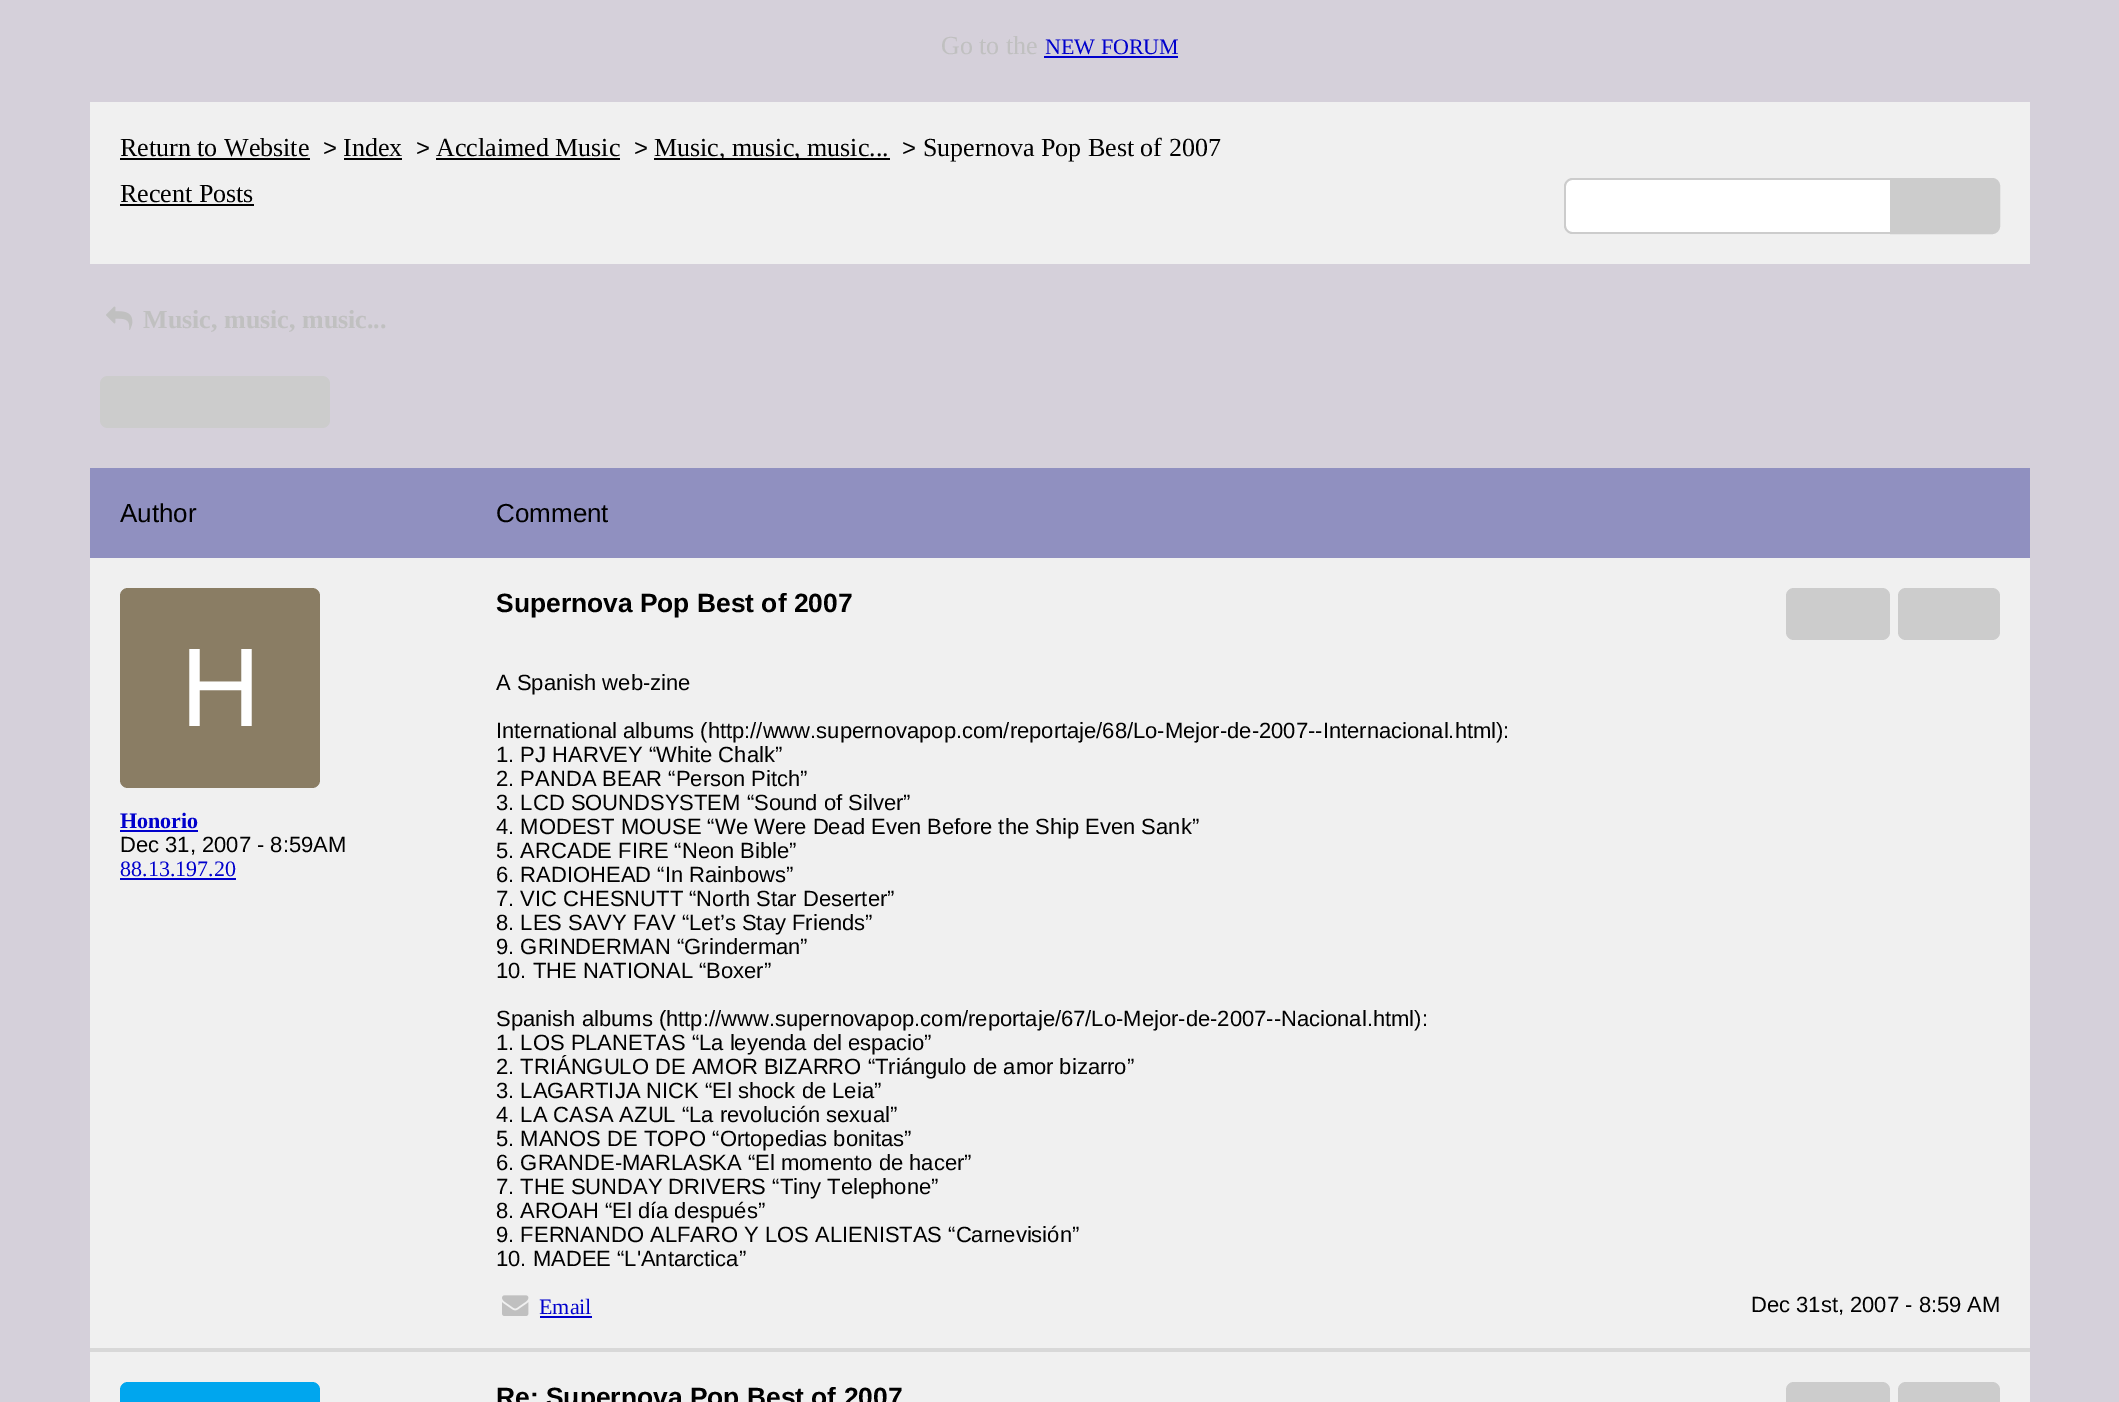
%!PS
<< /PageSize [2119 1402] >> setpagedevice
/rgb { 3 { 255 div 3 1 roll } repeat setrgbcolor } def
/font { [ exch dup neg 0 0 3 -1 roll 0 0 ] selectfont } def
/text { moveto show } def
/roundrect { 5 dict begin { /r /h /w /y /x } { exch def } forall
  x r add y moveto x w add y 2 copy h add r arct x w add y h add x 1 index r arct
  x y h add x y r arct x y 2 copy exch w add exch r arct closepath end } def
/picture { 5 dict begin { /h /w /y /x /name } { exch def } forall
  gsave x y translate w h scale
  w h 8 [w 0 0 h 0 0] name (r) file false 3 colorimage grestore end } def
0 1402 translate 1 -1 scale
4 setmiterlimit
213 208 218 rgb
0 0 2119 1402 rectfill
0 0 204 rgb
1044 56 134 2 rectfill
240 240 240 rgb
90 102 1940 162 rectfill
0 0 0 rgb
120 158 190 2 rectfill
344 158 58 2 rectfill
436 158 184 2 rectfill
654 158 236 2 rectfill
120 204 134 2 rectfill
255 255 255 rgb
1564 178 416 56 8 roundrect fill
204 204 204 rgb
1572 178 moveto 400 0 rlineto 4 0 8 4 8 8 rcurveto 0 40 rlineto 0 4 -4 8 -8 8 rcurveto -400 0 rlineto -4 0 -8 -4 -8 -8 rcurveto 0 -40 rlineto 0 -4 4 -8 8 -8 rcurveto closepath 1572 180 moveto 400 0 rlineto 4 0 8 3 8 6 rcurveto 0 40 rlineto 0 3 -4 6 -8 6 rcurveto -400 0 rlineto -3 0 -6 -3 -6 -6 rcurveto 0 -40 rlineto 0 -3 3 -6 6 -6 rcurveto closepath eofill
1891 179 moveto 101 0 rlineto 4 0 7 3 7 7 rcurveto 0 40 rlineto 0 4 -3 7 -7 7 rcurveto -101 0 rlineto closepath gsave fill grestore
2 setlinewidth
stroke
(img_01.rgb) 106 306 27 24 picture
100 376 230 52 8 roundrect fill
144 144 192 rgb
90 468 1940 90 rectfill
240 240 240 rgb
90 558 1940 790 rectfill
216 216 216 rgb
90 1348 1940 4 rectfill
138 125 100 rgb
120 588 200 200 8 roundrect fill
0 0 204 rgb
120 830 78 2 rectfill
120 878 116 2 rectfill
204 204 204 rgb
1786 588 104 52 8 roundrect fill
1898 588 102 52 8 roundrect fill
(img_02.rgb) 502 1295 27 21 picture
0 0 204 rgb
540 1316 52 2 rectfill
240 240 240 rgb
90 1352 1940 50 rectfill
0 166 238 rgb
120 1382 200 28 8 roundrect fill
204 204 204 rgb
1786 1382 104 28 8 roundrect fill
1898 1382 102 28 8 roundrect fill
/LiberationSerif-Regular 26 font
192 192 192 rgb
(Go to the) 941 54 text
/LiberationSerif-Regular 22 font
0 0 204 rgb
(NEW FORUM) 1045 54 text
/LiberationSerif-Regular 26 font
0 0 0 rgb
(Return to Website) 120 156 text
/LiberationSans-Regular 24 font
(>) 323 156 text
/LiberationSerif-Regular 26 font
(Index) 343 156 text
/LiberationSans-Regular 24 font
(>) 416 156 text
/LiberationSerif-Regular 26 font
(Acclaimed Music) 436 156 text
/LiberationSans-Regular 24 font
(>) 634 156 text
/LiberationSerif-Regular 26 font
(Music, music, music...) 654 156 text
/LiberationSans-Regular 24 font
(>) 902 156 text
/LiberationSerif-Regular 26 font
(Supernova Pop Best of 2007) 923 156 text
(Recent Posts) 120 202 text
/LiberationSerif-Bold 26 font
192 192 192 rgb
(Music, music, music...) 143 328 text
/LiberationSans-Regular 26 font
0 0 0 rgb
(Author) 120 522 text
(Comment) 496 522 text
/LiberationSans-Regular 112 font
255 255 255 rgb
(H) 180 726 text
/LiberationSerif-Bold 22 font
0 0 204 rgb
(Honorio) 120 828 text
/LiberationSans-Regular 22 font
0 0 0 rgb
(Dec 31, 2007 - 8:59AM) 120 852 text
/LiberationSerif-Regular 22 font
0 0 204 rgb
(88.13.197.20) 120 876 text
/LiberationSans-Bold 26.4 font
0 0 0 rgb
(Supernova Pop Best of 2007) 496 612 text
/LiberationSans-Regular 22 font
(A Spanish web-zine) 496 690 text
(International albums \(http://www.supernovapop.com/reportaje/68/Lo-Mejor-de-2007--Internacional.html\):) 496 738 text
(1. PJ HARVEY “White Chalk”) 496 762 text
(2. PANDA BEAR “Person Pitch”) 496 786 text
(3. LCD SOUNDSYSTEM “Sound of Silver”) 496 810 text
(4. MODEST MOUSE “We Were Dead Even Before the Ship Even Sank”) 496 834 text
(5. ARCADE FIRE “Neon Bible”) 496 858 text
(6. RADIOHEAD “In Rainbows”) 496 882 text
(7. VIC CHESNUTT “North Star Deserter”) 496 906 text
(8. LES SAVY FAV “Let’s Stay Friends”) 496 930 text
(9. GRINDERMAN “Grinderman”) 496 954 text
(10. THE NATIONAL “Boxer”) 496 978 text
(Spanish albums \(http://www.supernovapop.com/reportaje/67/Lo-Mejor-de-2007--Nacional.html\):) 496 1026 text
(1. LOS PLANETAS “La leyenda del espacio”) 496 1050 text
(2. TRIÁNGULO DE AMOR BIZARRO “Triángulo de amor bizarro”) 496 1074 text
(3. LAGARTIJA NICK “El shock de Leia”) 496 1098 text
(4. LA CASA AZUL “La revolución sexual”) 496 1122 text
(5. MANOS DE TOPO “Ortopedias bonitas”) 496 1146 text
(6. GRANDE-MARLASKA “El momento de hacer”) 496 1170 text
(7. THE SUNDAY DRIVERS “Tiny Telephone”) 496 1194 text
(8. AROAH “El día después”) 496 1218 text
(9. FERNANDO ALFARO Y LOS ALIENISTAS “Carnevisión”) 496 1242 text
(10. MADEE “L'Antarctica”) 496 1266 text
/LiberationSerif-Regular 22 font
0 0 204 rgb
(Email) 539 1314 text
/LiberationSans-Regular 22 font
0 0 0 rgb
(Dec 31st, 2007 - 8:59 AM) 1751 1312 text
/LiberationSans-Bold 26.4 font
(Re: Supernova Pop Best of 2007) 496 1406 text
showpage
